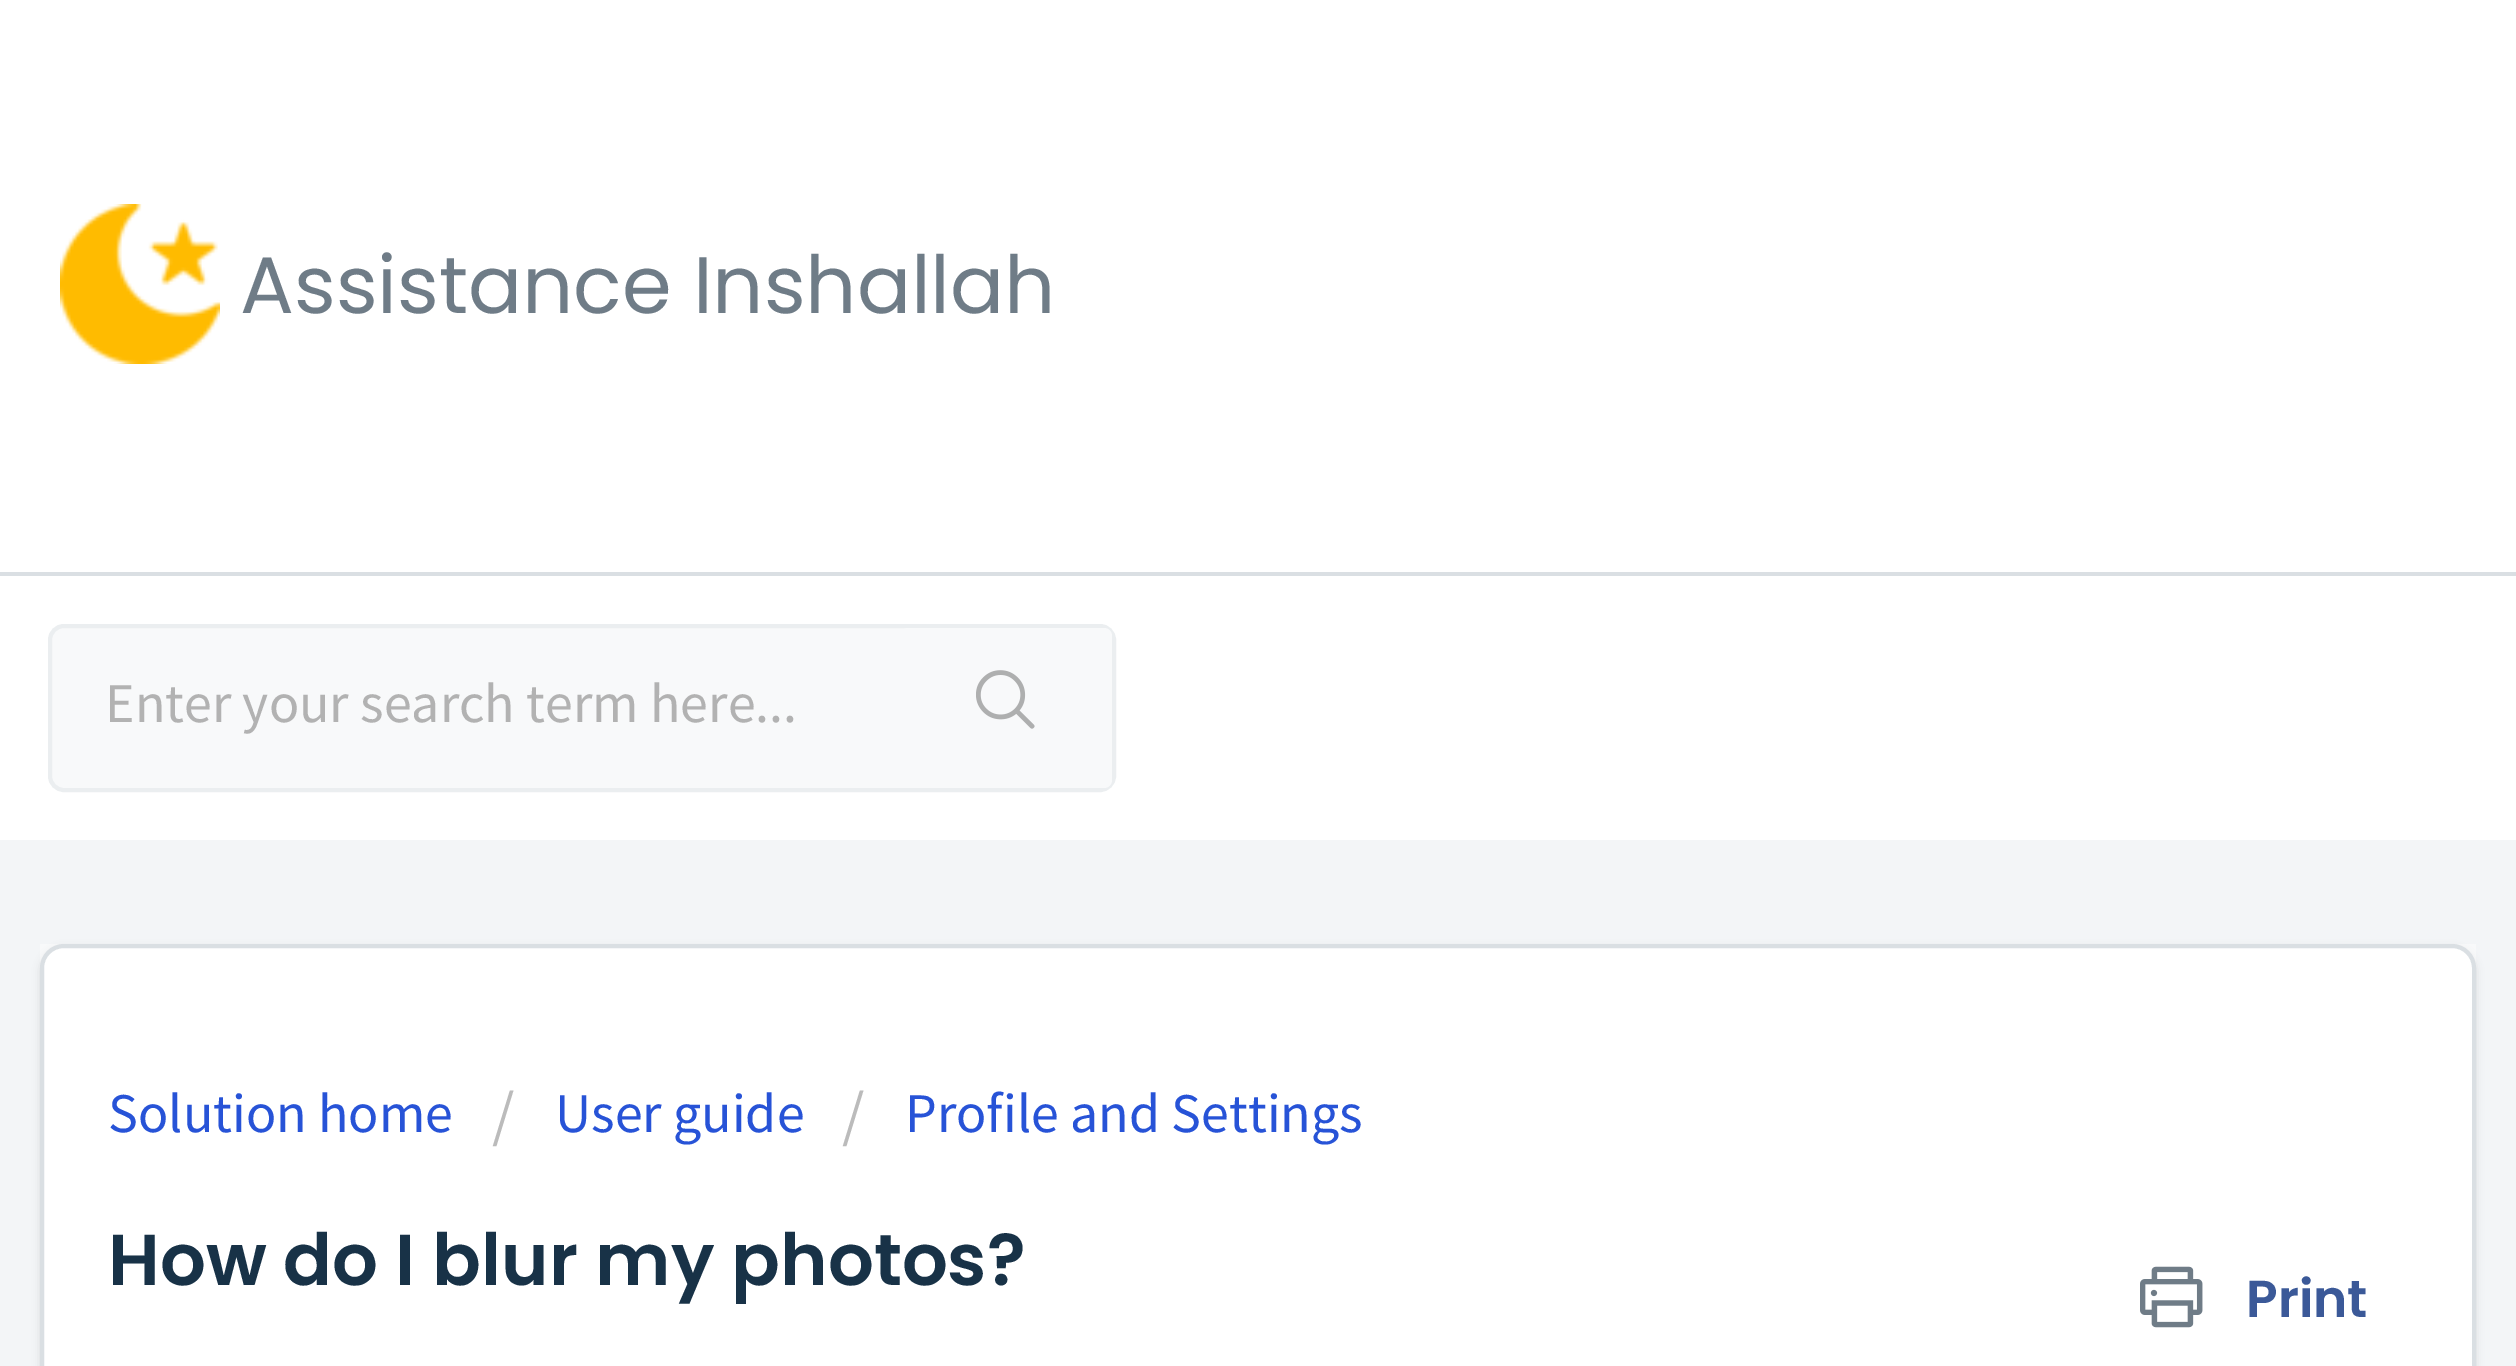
%!PS
<< /PageSize [2516 1366] /PageUsesTransparency true >> setpagedevice
/rgb { 3 { 255 div 3 1 roll } repeat setrgbcolor } def
/font { [ exch dup neg 0 0 3 -1 roll 0 0 ] selectfont } def
/text { moveto show } def
/alpha { dup .setfillconstantalpha .setstrokeconstantalpha } def
/roundrect { 5 dict begin { /r /h /w /y /x } { exch def } forall
  x r add y moveto x w add y 2 copy h add r arct x w add y h add x 1 index r arct
  x y h add x y r arct x y 2 copy exch w add exch r arct closepath end } def
/shadow { 12 dict begin { /a /b /q /h /w /y /x } { exch def } forall gsave /was 0 def
  9 -2 -9 { dup b mul 4 div /e exch def 1 sub .425 mul 2.718 exch exp 1 add a .99 .min exch div /now exch def
    1 1 now sub 1 was sub div sub alpha /was now def
    w h .min e 2 mul add 0 gt { x e sub y e sub w e 2 mul add h e 2 mul add
      q e add b .6 mul add w h .min 2 div e add .min 0 .max roundrect fill } if } for grestore end } def
/picture { 5 dict begin { /h /w /y /x /name } { exch def } forall
  gsave x y translate w h scale
  w h 8 [w 0 0 h 0 0] name (r) file false 3 colorimage grestore end } def
0 .pushpdf14devicefilter
0 1366 translate 1 -1 scale
4 setmiterlimit
243 245 247 rgb
0 0 2516 1366 rectfill
255 255 255 rgb
0 0 2516 572 rectfill
218 223 227 rgb
0 572 2516 4 rectfill
(img_01.rgb) 60 204 160 160 picture
255 255 255 rgb
0 576 2516 264 rectfill
248 249 250 rgb
50 626 1064 164 14 roundrect gsave fill grestore
235 238 240 rgb
4 setlinewidth
stroke
248 249 250 rgb
900 628 212 160 8 roundrect fill
(img_02.rgb) 976 670 59 59 picture
40 944 2436 24 rectfill
63 63 68 rgb
40 948 2436 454 24 4 0.15 shadow
255 255 255 rgb
42 946 2432 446 22 roundrect gsave fill grestore
218 223 227 rgb
stroke
(img_03.rgb) 2140 1266 63 62 picture
/Poppins-Regular 80 font
111 124 135 rgb
(Assistance Inshallah) 240 313 text
/SourceSansPro-Regular 56 font
178 178 178 rgb
(Enter your search term here...) 105 722 text
39 83 215 rgb
(Solution home) 108 1132 text
/SourceSansPro-Regular 64 font
187 187 187 rgb
(/) 492 1136 text
/SourceSansPro-Regular 56 font
39 83 215 rgb
(User guide) 555 1132 text
/SourceSansPro-Regular 64 font
187 187 187 rgb
(/) 842 1136 text
/SourceSansPro-Regular 56 font
39 83 215 rgb
(Profile and Settings) 905 1132 text
/Poppins-SemiBold 72 font
24 50 71 rgb
(How do I blur my photos?) 108 1285 text
/Poppins-SemiBold 52 font
59 89 152 rgb
(Print) 2246 1317 text
.poppdf14devicefilter showpage
